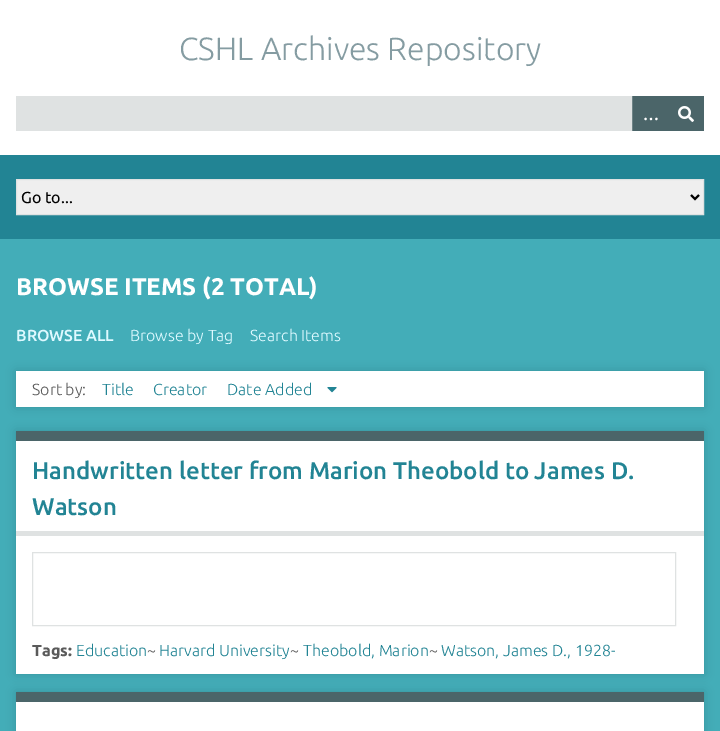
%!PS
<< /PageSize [720 731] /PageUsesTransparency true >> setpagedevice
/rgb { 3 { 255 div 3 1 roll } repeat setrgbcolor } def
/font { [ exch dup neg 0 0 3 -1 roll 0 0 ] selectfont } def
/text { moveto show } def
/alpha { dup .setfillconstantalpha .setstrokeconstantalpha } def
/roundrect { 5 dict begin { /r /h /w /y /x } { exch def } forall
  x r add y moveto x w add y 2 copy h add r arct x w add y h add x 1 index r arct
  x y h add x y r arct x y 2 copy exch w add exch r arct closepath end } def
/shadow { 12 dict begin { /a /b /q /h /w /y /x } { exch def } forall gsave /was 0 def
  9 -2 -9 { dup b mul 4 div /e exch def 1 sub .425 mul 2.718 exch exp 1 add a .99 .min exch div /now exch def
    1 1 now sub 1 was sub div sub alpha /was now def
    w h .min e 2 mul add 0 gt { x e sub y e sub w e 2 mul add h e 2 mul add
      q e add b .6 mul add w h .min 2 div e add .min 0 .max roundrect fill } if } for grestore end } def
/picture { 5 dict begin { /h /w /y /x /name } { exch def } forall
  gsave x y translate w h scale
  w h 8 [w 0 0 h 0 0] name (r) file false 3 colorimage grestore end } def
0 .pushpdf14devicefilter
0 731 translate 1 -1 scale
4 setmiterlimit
255 255 255 rgb
0 0 720 731 rectfill
223 226 226 rgb
16 96 616 35 rectfill
75 101 105 rgb
633 96 71 35 rectfill
111 132 135 rgb
632 96 1 35 rectfill
(img_01.rgb) 678 106 16 16 picture
34 132 148 rgb
0 155 720 84 rectfill
239 239 239 rgb
16.5 179.5 moveto 687 0 rlineto 0 35 rlineto -687 0 rlineto closepath gsave fill grestore
223 226 226 rgb
stroke
0 0 0 rgb
2 setlinewidth
691 195 moveto 4 4 rlineto 4 -4 rlineto stroke
67 173 184 rgb
0 239 720 492 rectfill
0 0 0 rgb
16 371 688 36 0 5 0.15 shadow
255 255 255 rgb
16 371 688 36 rectfill
(img_02.rgb) 327 387 10 6 picture
0 0 0 rgb
16 431 688 243 0 5 0.15 shadow
255 255 255 rgb
16 441 688 233 rectfill
75 101 105 rgb
16 431 688 10 rectfill
223 226 226 rgb
16 531 688 5 rectfill
1 setlinewidth
32.5 552.5 643 73 rectstroke
0 0 0 rgb
16 692 688 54 0 5 0.15 shadow
255 255 255 rgb
16 702 688 29 rectfill
75 101 105 rgb
16 692 688 10 rectfill
/Ubuntu-Light 32 font
133 156 162 rgb
(CSHL Archives Repository) 179 60 text
/LiberationSerif-Bold 16 font
255 255 255 rgb
(…) 643 120 text
/Ubuntu-Regular 16 font
0 0 0 rgb
(Go to...) 21 203 text
/Ubuntu-Bold 24 font
255 255 255 rgb
(BROWSE ITEMS \(2 TOTAL\)) 16 295 text
/Ubuntu-Medium 16 font
222 249 255 rgb
(BROWSE ALL) 16 341 text
/Ubuntu-Light 16 font
(Browse by Tag) 130 341 text
(Search Items) 250 341 text
90 90 90 rgb
(Sort by:) 32 395 text
34 132 148 rgb
(Title) 102 395 text
(Creator) 153 395 text
(Date Added) 227 395 text
/Ubuntu-Medium 24 font
(Handwritten letter from Marion Theobold to James D.) 32 479 text
(Watson) 32 515 text
/Ubuntu-Bold 16 font
90 90 90 rgb
(Tags:) 32 656 text
/Ubuntu-Light 16 font
34 132 148 rgb
(Education) 76 656 text
90 90 90 rgb
(~) 147 656 text
34 132 148 rgb
(Harvard University) 159 656 text
90 90 90 rgb
(~) 290 656 text
34 132 148 rgb
(Theobold, Marion) 303 656 text
90 90 90 rgb
(~) 429 656 text
34 132 148 rgb
(Watson, James D., 1928-) 441 656 text
.poppdf14devicefilter showpage
